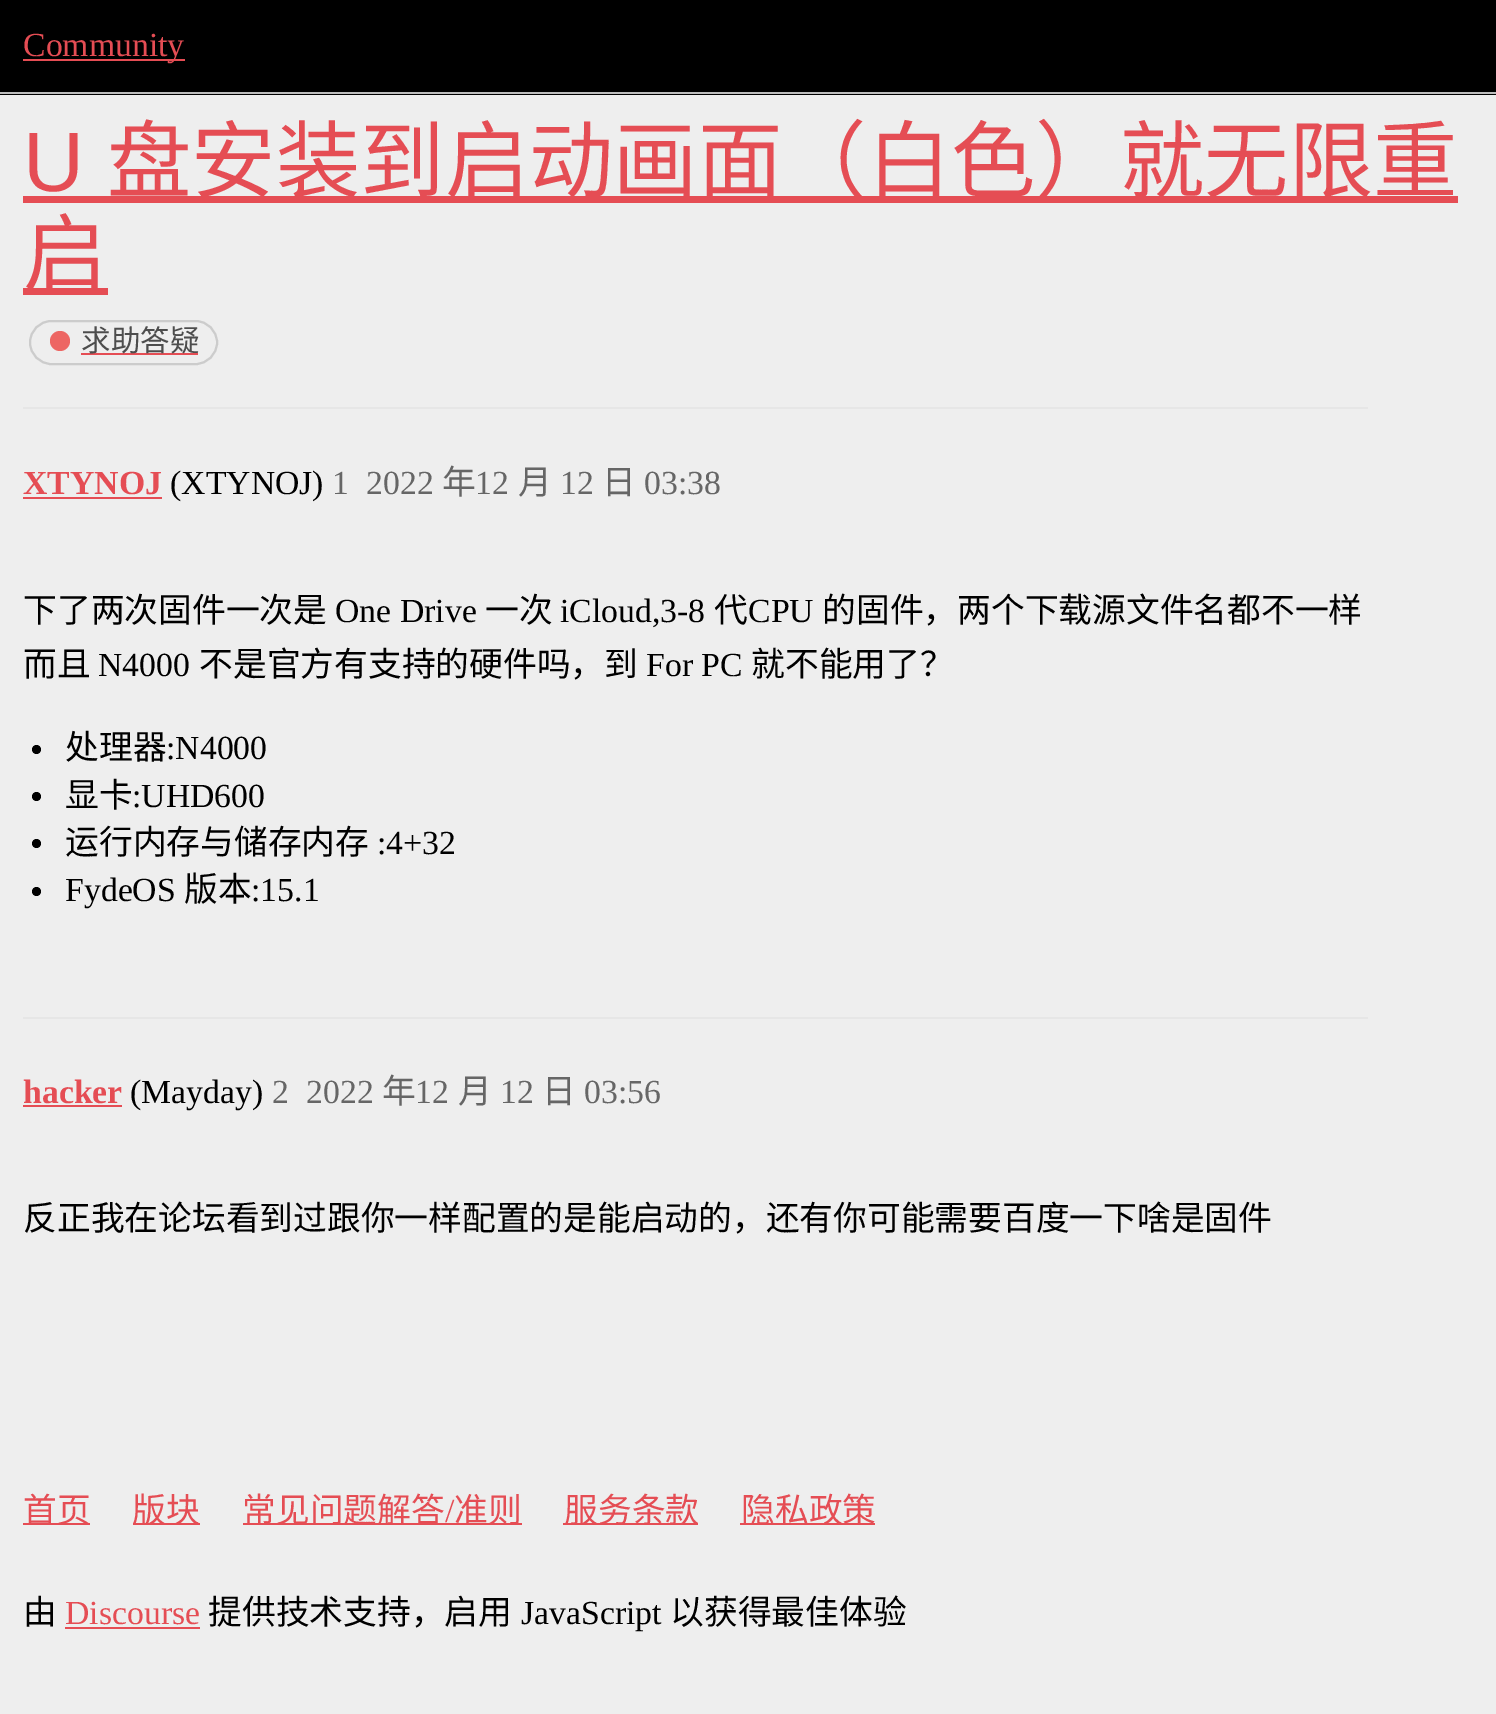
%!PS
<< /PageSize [1496 1714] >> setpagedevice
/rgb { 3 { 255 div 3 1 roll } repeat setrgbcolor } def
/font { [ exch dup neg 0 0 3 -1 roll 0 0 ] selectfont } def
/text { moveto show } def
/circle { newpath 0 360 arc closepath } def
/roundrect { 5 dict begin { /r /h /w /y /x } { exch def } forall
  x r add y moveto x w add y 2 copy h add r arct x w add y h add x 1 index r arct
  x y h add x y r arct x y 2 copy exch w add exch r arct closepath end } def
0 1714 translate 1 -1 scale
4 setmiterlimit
238 238 238 rgb
0 0 1496 1714 rectfill
0 0 0 rgb
0 0 1496 95 rectfill
189 189 189 rgb
0 92 1496 2 rectfill
229 77 84 rgb
23 59 162 2 rectfill
23 196 1435 7 rectfill
23 288 85 7 rectfill
204 204 204 rgb
2 setlinewidth
30 321 187 43 21.5 roundrect stroke
237 102 99 rgb
60 341 10 circle fill
229 77 84 rgb
81 353 117 2 rectfill
230 230 230 rgb
23 407 1345 2 rectfill
229 77 84 rgb
23 497 139 2 rectfill
0 0 0 rgb
36.5 749.5 4.5 circle fill
36.5 796.5 4.5 circle fill
36.5 843.5 4.5 circle fill
36.5 891.5 4.5 circle fill
230 230 230 rgb
23 1017 1345 2 rectfill
229 77 84 rgb
23 1105 99 2 rectfill
23 1523 67 2 rectfill
133 1523 67 2 rectfill
243 1523 279 2 rectfill
563 1523 135 2 rectfill
740 1523 135 2 rectfill
65 1627 135 2 rectfill
/LiberationSerif-Regular 33.75 font
(Community) 23 56 text
/LiberationSans-Regular 84.4 font
(U) 23 191 text
/NotoSansCJKSC-Regular 84.4 font
(盘安装到启动画面（白色）就无限重) 107 191 text
(启) 23 284 text
/NotoSansCJKSC-Regular 29.5 font
77 77 77 rgb
(求助答疑) 81 351 text
/LiberationSerif-Bold 33.75 font
229 77 84 rgb
(XTYNOJ) 23 494 text
/LiberationSerif-Regular 33.75 font
0 0 0 rgb
(\(XTYNOJ\)) 170 494 text
102 102 102 rgb
(1) 332 494 text
(2022) 366 494 text
/NotoSansCJKSC-Regular 33.75 font
(年) 442 494 text
/LiberationSerif-Regular 33.75 font
(12) 475 494 text
/NotoSansCJKSC-Regular 33.75 font
(月) 518 494 text
/LiberationSerif-Regular 33.75 font
(12) 560 494 text
/NotoSansCJKSC-Regular 33.75 font
(日) 602 494 text
/LiberationSerif-Regular 33.75 font
(03:38) 644 494 text
/NotoSansCJKSC-Regular 33.75 font
0 0 0 rgb
(下了两次固件一次是) 23 622 text
/LiberationSerif-Regular 33.75 font
(One Drive) 335 622 text
/NotoSansCJKSC-Regular 33.75 font
(一次) 485 622 text
/LiberationSerif-Regular 33.75 font
(iCloud,3-8) 560 622 text
/NotoSansCJKSC-Regular 33.75 font
(代) 714 622 text
/LiberationSerif-Regular 33.75 font
(CPU) 748 622 text
/NotoSansCJKSC-Regular 33.75 font
(的固件，两个下载源文件名都不一样) 822 622 text
(而且) 23 676 text
/LiberationSerif-Regular 33.75 font
(N4000) 98 676 text
/NotoSansCJKSC-Regular 33.75 font
(不是官方有支持的硬件吗，到) 199 676 text
/LiberationSerif-Regular 33.75 font
(For PC) 646 676 text
/NotoSansCJKSC-Regular 33.75 font
(就不能用了？) 751 676 text
(处理器) 65 759 text
/LiberationSerif-Regular 33.75 font
(:N4000) 166 759 text
/NotoSansCJKSC-Regular 33.75 font
(显卡) 65 807 text
/LiberationSerif-Regular 33.75 font
(:UHD600) 132 807 text
/NotoSansCJKSC-Regular 33.75 font
(运行内存与储存内存) 65 854 text
/LiberationSerif-Regular 33.75 font
(:4+32) 377 854 text
(FydeOS) 65 901 text
/NotoSansCJKSC-Regular 33.75 font
(版本) 184 901 text
/LiberationSerif-Regular 33.75 font
(:15.1) 251 901 text
/LiberationSerif-Bold 33.75 font
229 77 84 rgb
(hacker) 23 1103 text
/LiberationSerif-Regular 33.75 font
0 0 0 rgb
(\(Mayday\)) 130 1103 text
102 102 102 rgb
(2) 272 1103 text
(2022) 306 1103 text
/NotoSansCJKSC-Regular 33.75 font
(年) 382 1103 text
/LiberationSerif-Regular 33.75 font
(12) 415 1103 text
/NotoSansCJKSC-Regular 33.75 font
(月) 458 1103 text
/LiberationSerif-Regular 33.75 font
(12) 500 1103 text
/NotoSansCJKSC-Regular 33.75 font
(日) 542 1103 text
/LiberationSerif-Regular 33.75 font
(03:56) 584 1103 text
/NotoSansCJKSC-Regular 33.75 font
0 0 0 rgb
(反正我在论坛看到过跟你一样配置的是能启动的，还有你可能需要百度一下啥是固件) 23 1230 text
229 77 84 rgb
(首页) 23 1522 text
(版块) 132 1522 text
(常见问题解答) 242 1522 text
/LiberationSerif-Regular 33.75 font
(/) 445 1522 text
/NotoSansCJKSC-Regular 33.75 font
(准则) 454 1522 text
(服务条款) 564 1522 text
(隐私政策) 741 1522 text
0 0 0 rgb
(由) 23 1624 text
/LiberationSerif-Regular 33.75 font
229 77 84 rgb
(Discourse) 65 1624 text
/NotoSansCJKSC-Regular 33.75 font
0 0 0 rgb
(提供技术支持，启用) 208 1624 text
/LiberationSerif-Regular 33.75 font
(JavaScript) 521 1624 text
/NotoSansCJKSC-Regular 33.75 font
(以获得最佳体验) 670 1624 text
showpage
